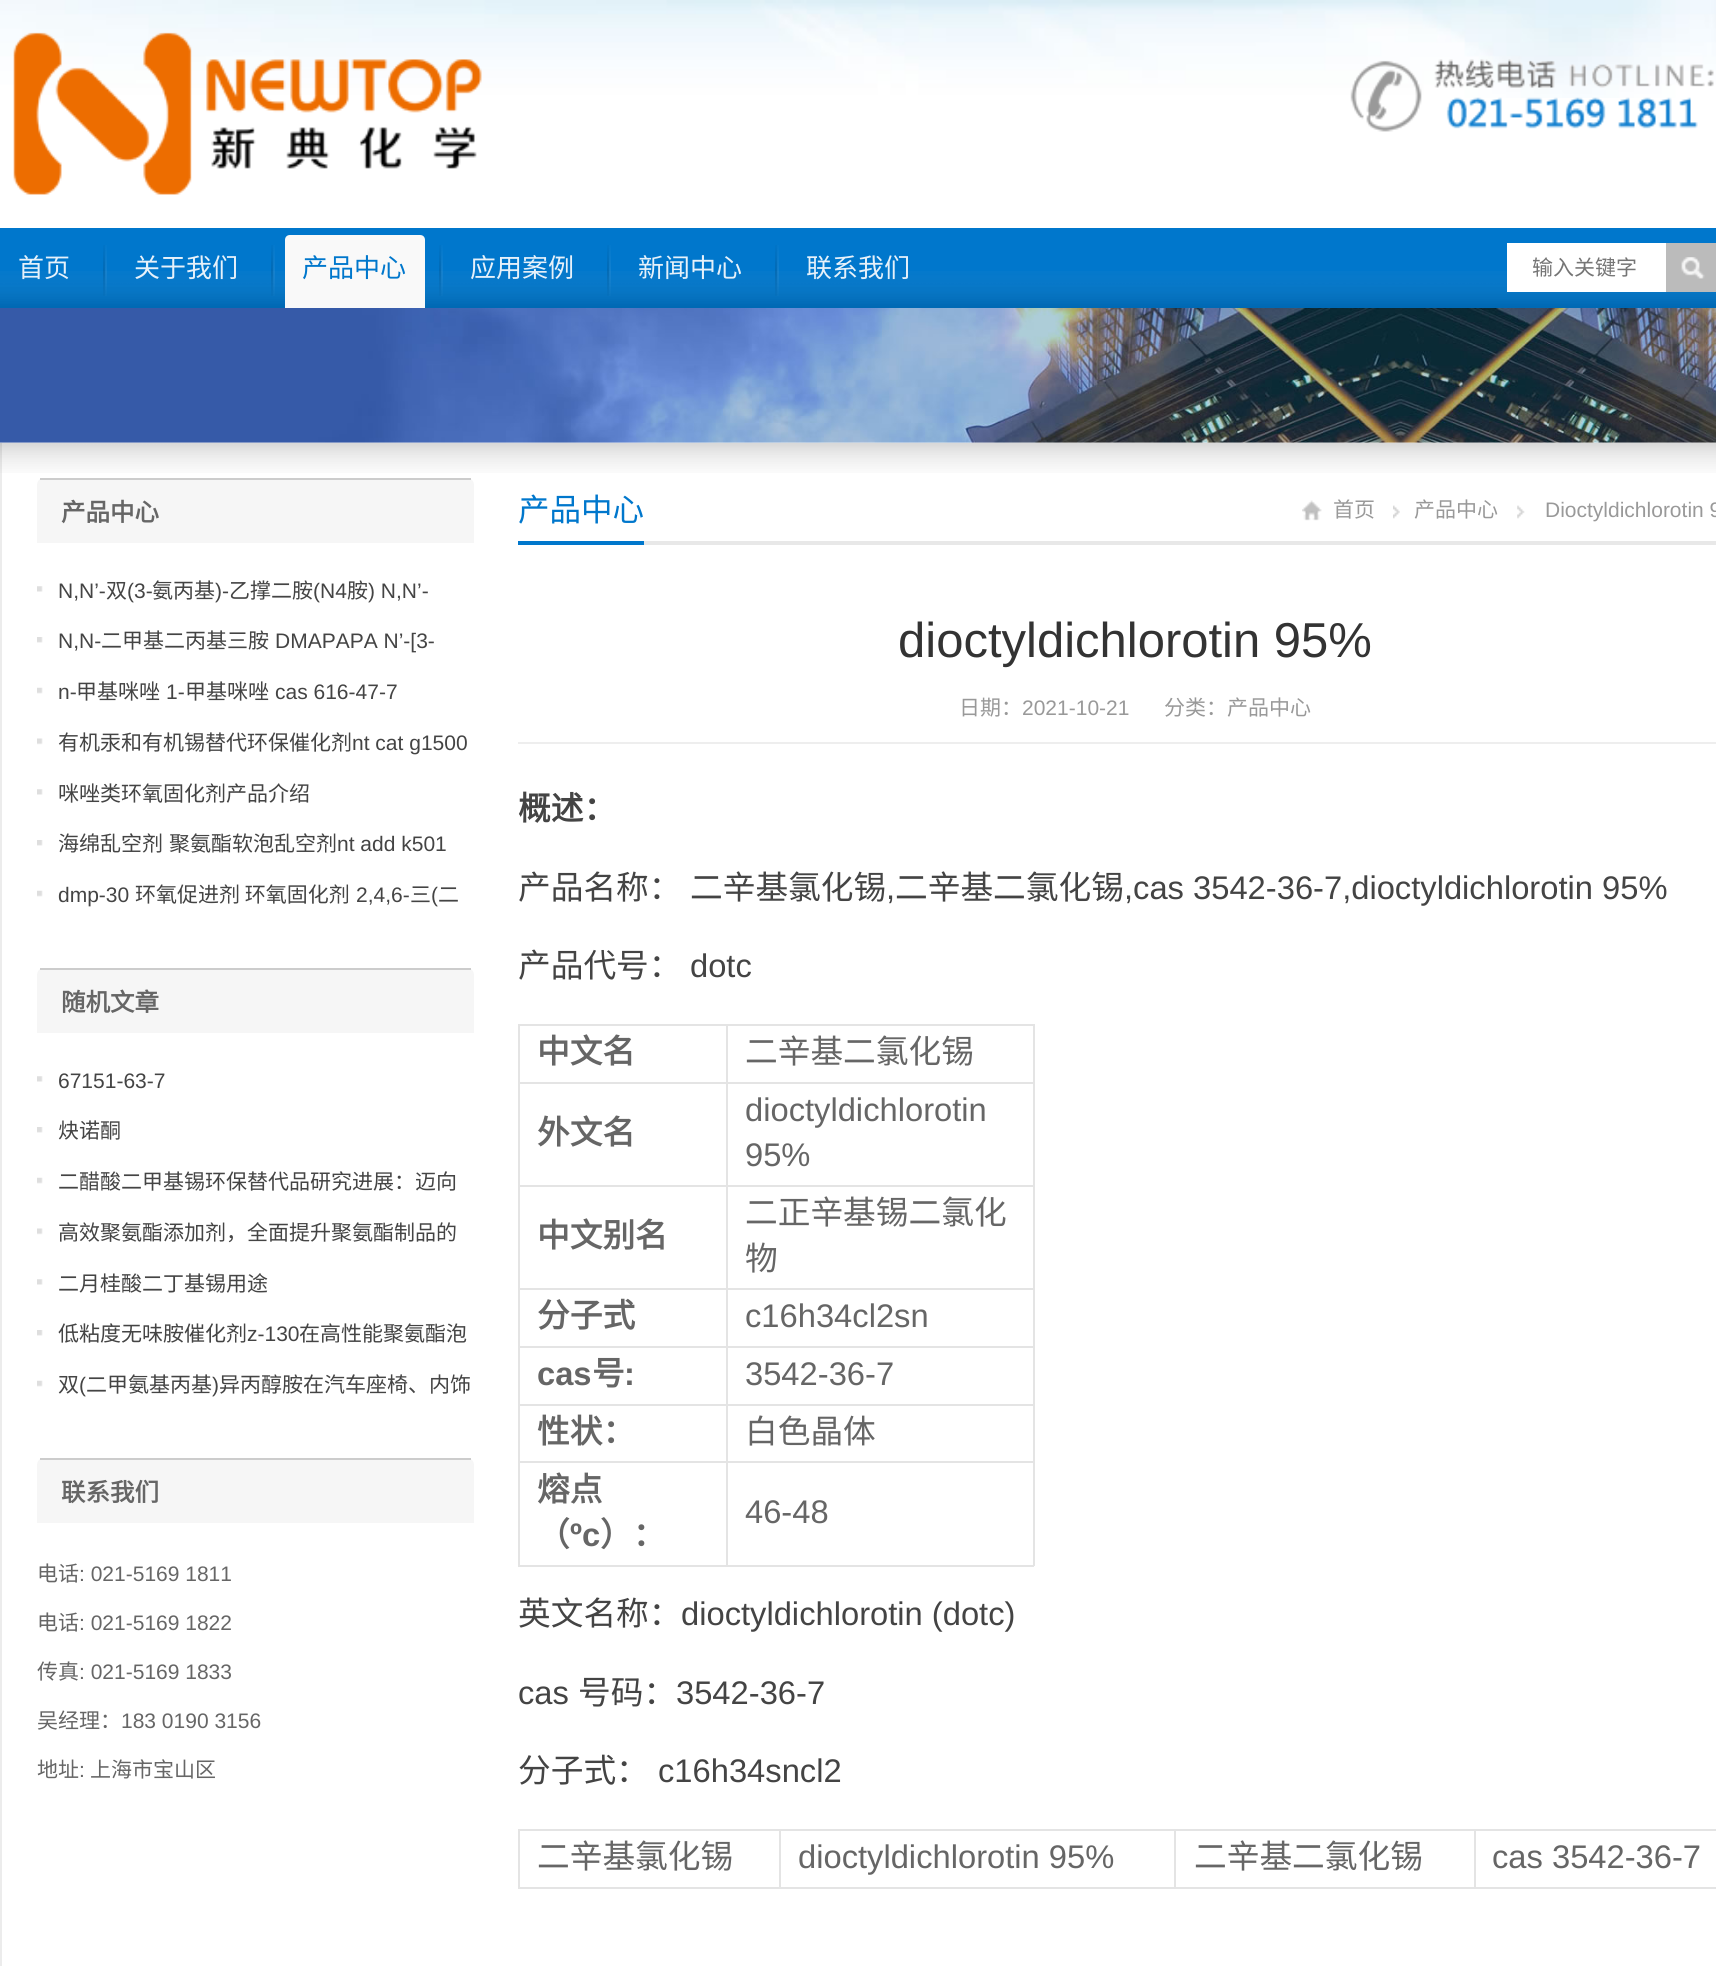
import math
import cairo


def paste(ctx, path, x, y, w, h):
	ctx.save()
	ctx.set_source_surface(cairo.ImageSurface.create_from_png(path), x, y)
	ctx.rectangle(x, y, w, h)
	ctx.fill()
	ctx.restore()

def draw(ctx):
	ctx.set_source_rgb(1, 1, 1)
	ctx.paint()
	paste(ctx, 'media/1.png', 0, 0, 1716, 98)
	paste(ctx, 'media/2.png', 13, 32, 469, 163)
	paste(ctx, 'media/3.png', 1350, 59, 364, 73)
	ctx.set_source_rgb(0, 0.467, 0.8)
	ctx.rectangle(0, 228, 1716, 80)
	ctx.fill()
	paste(ctx, 'media/4.png', 0, 271, 1716, 37)
	ctx.select_font_face('Noto Sans CJK SC')
	ctx.set_font_size(26)
	ctx.set_source_rgb(0.902, 0.945, 0.98)
	ctx.move_to(18, 277)
	ctx.show_text('首页')
	paste(ctx, 'media/5.png', 103, 245, 4, 51)
	ctx.move_to(134, 277)
	ctx.show_text('关于我们')
	paste(ctx, 'media/5.png', 271, 245, 4, 51)
	ctx.set_source_rgb(0.973, 0.973, 0.973)
	ctx.new_path()
	ctx.move_to(290, 235)
	ctx.line_to(420, 235)
	ctx.curve_to(423, 235, 425, 237, 425, 240)
	ctx.line_to(425, 308)
	ctx.line_to(285, 308)
	ctx.line_to(285, 240)
	ctx.curve_to(285, 237, 287, 235, 290, 235)
	ctx.close_path()
	ctx.fill()
	ctx.set_source_rgb(0, 0.467, 0.8)
	ctx.move_to(302, 277)
	ctx.show_text('产品中心')
	paste(ctx, 'media/6.png', 439, 245, 4, 51)
	ctx.set_source_rgb(0.902, 0.945, 0.98)
	ctx.move_to(470, 277)
	ctx.show_text('应用案例')
	paste(ctx, 'media/6.png', 607, 245, 4, 51)
	ctx.move_to(638, 277)
	ctx.show_text('新闻中心')
	paste(ctx, 'media/5.png', 775, 245, 4, 51)
	ctx.move_to(806, 277)
	ctx.show_text('联系我们')
	ctx.set_source_rgb(1, 1, 1)
	ctx.rectangle(1507, 243, 159, 49)
	ctx.fill()
	ctx.set_font_size(21)
	ctx.set_source_rgb(0.459, 0.459, 0.459)
	ctx.move_to(1532, 275)
	ctx.show_text('输入关键字')
	ctx.set_source_rgb(0.733, 0.733, 0.733)
	ctx.rectangle(1666, 243, 50, 49)
	ctx.fill()
	paste(ctx, 'media/7.png', 1681, 257, 24, 22)
	ctx.set_source_rgb(0.933, 0.933, 0.933)
	ctx.rectangle(0, 442, 1716, 1)
	ctx.fill()
	paste(ctx, 'media/8.png', 0, 308, 1716, 135)
	ctx.set_source_rgb(0.922, 0.922, 0.922)
	ctx.rectangle(0, 443, 2, 1523)
	ctx.fill()
	paste(ctx, 'media/9.png', 0, 443, 1716, 30)
	ctx.set_source_rgb(0.961, 0.961, 0.961)
	ctx.new_path()
	ctx.move_to(44, 478)
	ctx.line_to(467, 478)
	ctx.curve_to(471, 478, 474, 481, 474, 485)
	ctx.line_to(474, 543)
	ctx.line_to(37, 543)
	ctx.line_to(37, 485)
	ctx.curve_to(37, 481, 40, 478, 44, 478)
	ctx.close_path()
	ctx.fill()
	ctx.set_source_rgb(0.8, 0.8, 0.8)
	ctx.rectangle(40, 478, 431, 2)
	ctx.fill()
	ctx.select_font_face('Noto Sans CJK SC', cairo.FONT_SLANT_NORMAL, cairo.FONT_WEIGHT_BOLD)
	ctx.set_font_size(24.5)
	ctx.set_source_rgb(0.4, 0.4, 0.4)
	ctx.move_to(61, 521)
	ctx.show_text('产品中心')
	paste(ctx, 'media/10.png', 37, 586, 6, 6)
	ctx.select_font_face('Liberation Sans')
	ctx.set_font_size(21)
	ctx.set_source_rgb(0.267, 0.267, 0.267)
	ctx.move_to(58, 598)
	ctx.show_text('N,N’-')
	ctx.select_font_face('Noto Sans CJK SC')
	ctx.move_to(106, 598)
	ctx.show_text('双')
	ctx.select_font_face('Liberation Sans')
	ctx.move_to(127, 598)
	ctx.show_text('(3-')
	ctx.select_font_face('Noto Sans CJK SC')
	ctx.move_to(152, 598)
	ctx.show_text('氨丙基')
	ctx.select_font_face('Liberation Sans')
	ctx.move_to(215, 598)
	ctx.show_text(')-')
	ctx.select_font_face('Noto Sans CJK SC')
	ctx.move_to(229, 598)
	ctx.show_text('乙撑二胺')
	ctx.select_font_face('Liberation Sans')
	ctx.move_to(313, 598)
	ctx.show_text('(N4')
	ctx.select_font_face('Noto Sans CJK SC')
	ctx.move_to(347, 598)
	ctx.show_text('胺')
	ctx.select_font_face('Liberation Sans')
	ctx.move_to(368, 598)
	ctx.show_text(') N,N’-')
	paste(ctx, 'media/11.png', 37, 637, 6, 6)
	ctx.move_to(58, 648)
	ctx.show_text('N,N-')
	ctx.select_font_face('Noto Sans CJK SC')
	ctx.move_to(101, 648)
	ctx.show_text('二甲基二丙基三胺')
	ctx.select_font_face('Liberation Sans')
	ctx.move_to(275, 648)
	ctx.show_text('DMAPAPA N’-[3-')
	paste(ctx, 'media/12.png', 37, 687, 6, 7)
	ctx.move_to(58, 699)
	ctx.show_text('n-')
	ctx.select_font_face('Noto Sans CJK SC')
	ctx.move_to(76, 699)
	ctx.show_text('甲基咪唑')
	ctx.select_font_face('Liberation Sans')
	ctx.move_to(166, 699)
	ctx.show_text('1-')
	ctx.select_font_face('Noto Sans CJK SC')
	ctx.move_to(185, 699)
	ctx.show_text('甲基咪唑')
	ctx.select_font_face('Liberation Sans')
	ctx.move_to(275, 699)
	ctx.show_text('cas 616-47-7')
	paste(ctx, 'media/13.png', 37, 738, 6, 7)
	ctx.select_font_face('Noto Sans CJK SC')
	ctx.move_to(58, 750)
	ctx.show_text('有机汞和有机锡替代环保催化剂')
	ctx.select_font_face('Liberation Sans')
	ctx.move_to(352, 750)
	ctx.show_text('nt cat g1500')
	paste(ctx, 'media/10.png', 37, 789, 6, 6)
	ctx.select_font_face('Noto Sans CJK SC')
	ctx.move_to(58, 801)
	ctx.show_text('咪唑类环氧固化剂产品介绍')
	paste(ctx, 'media/11.png', 37, 840, 6, 6)
	ctx.move_to(58, 851)
	ctx.show_text('海绵乱空剂')
	ctx.move_to(169, 851)
	ctx.show_text('聚氨酯软泡乱空剂')
	ctx.select_font_face('Liberation Sans')
	ctx.move_to(337, 851)
	ctx.show_text('nt add k501')
	paste(ctx, 'media/12.png', 37, 890, 6, 7)
	ctx.move_to(58, 902)
	ctx.show_text('dmp-30')
	ctx.select_font_face('Noto Sans CJK SC')
	ctx.move_to(135, 902)
	ctx.show_text('环氧促进剂 环氧固化剂')
	ctx.select_font_face('Liberation Sans')
	ctx.move_to(356, 902)
	ctx.show_text('2,4,6-')
	ctx.select_font_face('Noto Sans CJK SC')
	ctx.move_to(410, 902)
	ctx.show_text('三')
	ctx.select_font_face('Liberation Sans')
	ctx.move_to(431, 902)
	ctx.show_text('(')
	ctx.select_font_face('Noto Sans CJK SC')
	ctx.move_to(438, 902)
	ctx.show_text('二')
	ctx.set_source_rgb(0.961, 0.961, 0.961)
	ctx.new_path()
	ctx.move_to(44, 968)
	ctx.line_to(467, 968)
	ctx.curve_to(471, 968, 474, 971, 474, 975)
	ctx.line_to(474, 1033)
	ctx.line_to(37, 1033)
	ctx.line_to(37, 975)
	ctx.curve_to(37, 971, 40, 968, 44, 968)
	ctx.close_path()
	ctx.fill()
	ctx.set_source_rgb(0.8, 0.8, 0.8)
	ctx.rectangle(40, 968, 431, 2)
	ctx.fill()
	ctx.select_font_face('Noto Sans CJK SC', cairo.FONT_SLANT_NORMAL, cairo.FONT_WEIGHT_BOLD)
	ctx.set_font_size(24.5)
	ctx.set_source_rgb(0.4, 0.4, 0.4)
	ctx.move_to(61, 1011)
	ctx.show_text('随机文章')
	paste(ctx, 'media/10.png', 37, 1076, 6, 6)
	ctx.select_font_face('Liberation Sans')
	ctx.set_font_size(21)
	ctx.set_source_rgb(0.267, 0.267, 0.267)
	ctx.move_to(58, 1088)
	ctx.show_text('67151-63-7')
	paste(ctx, 'media/11.png', 37, 1127, 6, 6)
	ctx.select_font_face('Noto Sans CJK SC')
	ctx.move_to(58, 1138)
	ctx.show_text('炔诺酮')
	paste(ctx, 'media/12.png', 37, 1177, 6, 7)
	ctx.move_to(58, 1189)
	ctx.show_text('二醋酸二甲基锡环保替代品研究进展：迈向')
	paste(ctx, 'media/13.png', 37, 1228, 6, 7)
	ctx.move_to(58, 1240)
	ctx.show_text('高效聚氨酯添加剂，全面提升聚氨酯制品的')
	paste(ctx, 'media/10.png', 37, 1279, 6, 6)
	ctx.move_to(58, 1291)
	ctx.show_text('二月桂酸二丁基锡用途')
	paste(ctx, 'media/11.png', 37, 1330, 6, 6)
	ctx.move_to(58, 1341)
	ctx.show_text('低粘度无味胺催化剂')
	ctx.select_font_face('Liberation Sans')
	ctx.move_to(247, 1341)
	ctx.show_text('z-130')
	ctx.select_font_face('Noto Sans CJK SC')
	ctx.move_to(299, 1341)
	ctx.show_text('在高性能聚氨酯泡')
	paste(ctx, 'media/12.png', 37, 1380, 6, 7)
	ctx.move_to(58, 1392)
	ctx.show_text('双')
	ctx.select_font_face('Liberation Sans')
	ctx.move_to(79, 1392)
	ctx.show_text('(')
	ctx.select_font_face('Noto Sans CJK SC')
	ctx.move_to(86, 1392)
	ctx.show_text('二甲氨基丙基')
	ctx.select_font_face('Liberation Sans')
	ctx.move_to(212, 1392)
	ctx.show_text(')')
	ctx.select_font_face('Noto Sans CJK SC')
	ctx.move_to(219, 1392)
	ctx.show_text('异丙醇胺在汽车座椅、内饰')
	ctx.set_source_rgb(0.961, 0.961, 0.961)
	ctx.new_path()
	ctx.move_to(44, 1458)
	ctx.line_to(467, 1458)
	ctx.curve_to(471, 1458, 474, 1461, 474, 1465)
	ctx.line_to(474, 1523)
	ctx.line_to(37, 1523)
	ctx.line_to(37, 1465)
	ctx.curve_to(37, 1461, 40, 1458, 44, 1458)
	ctx.close_path()
	ctx.fill()
	ctx.set_source_rgb(0.8, 0.8, 0.8)
	ctx.rectangle(40, 1458, 431, 2)
	ctx.fill()
	ctx.select_font_face('Noto Sans CJK SC', cairo.FONT_SLANT_NORMAL, cairo.FONT_WEIGHT_BOLD)
	ctx.set_font_size(24.5)
	ctx.set_source_rgb(0.4, 0.4, 0.4)
	ctx.move_to(61, 1501)
	ctx.show_text('联系我们')
	ctx.select_font_face('Noto Sans CJK SC')
	ctx.set_font_size(21)
	ctx.move_to(37, 1581)
	ctx.show_text('电话')
	ctx.select_font_face('Liberation Sans')
	ctx.move_to(79, 1581)
	ctx.show_text(': 021-5169 1811')
	ctx.select_font_face('Noto Sans CJK SC')
	ctx.move_to(37, 1630)
	ctx.show_text('电话')
	ctx.select_font_face('Liberation Sans')
	ctx.move_to(79, 1630)
	ctx.show_text(': 021-5169 1822')
	ctx.select_font_face('Noto Sans CJK SC')
	ctx.move_to(37, 1679)
	ctx.show_text('传真')
	ctx.select_font_face('Liberation Sans')
	ctx.move_to(79, 1679)
	ctx.show_text(': 021-5169 1833')
	ctx.select_font_face('Noto Sans CJK SC')
	ctx.move_to(37, 1728)
	ctx.show_text('吴经理：')
	ctx.select_font_face('Liberation Sans')
	ctx.move_to(121, 1728)
	ctx.show_text('183 0190 3156')
	ctx.select_font_face('Noto Sans CJK SC')
	ctx.move_to(37, 1777)
	ctx.show_text('地址')
	ctx.select_font_face('Liberation Sans')
	ctx.move_to(79, 1777)
	ctx.show_text(':')
	ctx.select_font_face('Noto Sans CJK SC')
	ctx.move_to(90, 1777)
	ctx.show_text('上海市宝山区')
	ctx.set_source_rgb(0.91, 0.91, 0.91)
	ctx.rectangle(644, 541, 1072, 4)
	ctx.fill()
	ctx.set_source_rgb(0, 0.467, 0.8)
	ctx.rectangle(518, 541, 126, 4)
	ctx.fill()
	ctx.set_font_size(31.5)
	ctx.move_to(518, 521)
	ctx.show_text('产品中心')
	paste(ctx, 'media/14.png', 1302, 500, 20, 21)
	ctx.set_font_size(21)
	ctx.set_source_rgb(0.6, 0.6, 0.6)
	ctx.move_to(1333, 517)
	ctx.show_text('首页')
	paste(ctx, 'media/15.png', 1393, 505, 7, 14)
	ctx.move_to(1414, 517)
	ctx.show_text('产品中心')
	paste(ctx, 'media/16.png', 1517, 505, 8, 14)
	ctx.select_font_face('Liberation Sans')
	ctx.move_to(1545, 517)
	ctx.show_text('Dioctyldichlorotin 9')
	ctx.set_font_size(49)
	ctx.set_source_rgb(0.2, 0.2, 0.2)
	ctx.move_to(898, 657)
	ctx.show_text('dioctyldichlorotin 95%')
	ctx.set_source_rgb(0.933, 0.933, 0.933)
	ctx.rectangle(518, 742, 1198, 2)
	ctx.fill()
	ctx.select_font_face('Noto Sans CJK SC')
	ctx.set_font_size(21)
	ctx.set_source_rgb(0.6, 0.6, 0.6)
	ctx.move_to(959, 715)
	ctx.show_text('日期：')
	ctx.select_font_face('Liberation Sans')
	ctx.move_to(1022, 715)
	ctx.show_text('2021-10-21')
	ctx.select_font_face('Noto Sans CJK SC')
	ctx.move_to(1164, 715)
	ctx.show_text('分类：产品中心')
	ctx.select_font_face('Noto Sans CJK SC', cairo.FONT_SLANT_NORMAL, cairo.FONT_WEIGHT_BOLD)
	ctx.set_font_size(32.7)
	ctx.set_source_rgb(0.267, 0.267, 0.267)
	ctx.move_to(518, 820)
	ctx.show_text('概述：')
	ctx.select_font_face('Noto Sans CJK SC')
	ctx.move_to(518, 899)
	ctx.show_text('产品名称：')
	ctx.move_to(690, 899)
	ctx.show_text('二辛基氯化锡')
	ctx.select_font_face('Liberation Sans')
	ctx.move_to(886, 899)
	ctx.show_text(',')
	ctx.select_font_face('Noto Sans CJK SC')
	ctx.move_to(895, 899)
	ctx.show_text('二辛基二氯化锡')
	ctx.select_font_face('Liberation Sans')
	ctx.move_to(1124, 899)
	ctx.show_text(',cas 3542-36-7,dioctyldichlorotin 95%')
	ctx.select_font_face('Noto Sans CJK SC')
	ctx.move_to(518, 977)
	ctx.show_text('产品代号：')
	ctx.select_font_face('Liberation Sans')
	ctx.move_to(690, 977)
	ctx.show_text('dotc')
	ctx.set_source_rgb(0.894, 0.894, 0.894)
	ctx.rectangle(518, 1565, 516, 2)
	ctx.rectangle(518, 1024, 2, 542)
	ctx.rectangle(518, 1024, 516, 2)
	ctx.rectangle(518, 1082, 516, 2)
	ctx.rectangle(518, 1185, 516, 2)
	ctx.rectangle(518, 1288, 516, 2)
	ctx.rectangle(518, 1346, 516, 2)
	ctx.rectangle(518, 1404, 516, 2)
	ctx.rectangle(518, 1461, 516, 2)
	ctx.rectangle(726, 1461, 2, 105)
	ctx.rectangle(726, 1404, 2, 59)
	ctx.rectangle(726, 1346, 2, 59)
	ctx.rectangle(726, 1288, 2, 60)
	ctx.rectangle(726, 1185, 2, 105)
	ctx.rectangle(726, 1082, 2, 105)
	ctx.rectangle(726, 1024, 2, 59)
	ctx.fill()
	ctx.select_font_face('Noto Sans CJK SC', cairo.FONT_SLANT_NORMAL, cairo.FONT_WEIGHT_BOLD)
	ctx.set_source_rgb(0.4, 0.4, 0.4)
	ctx.move_to(537, 1063)
	ctx.show_text('中文名')
	ctx.set_source_rgb(0.894, 0.894, 0.894)
	ctx.rectangle(1033, 1461, 2, 105)
	ctx.rectangle(1033, 1404, 2, 59)
	ctx.rectangle(1033, 1346, 2, 59)
	ctx.rectangle(1033, 1288, 2, 60)
	ctx.rectangle(1033, 1185, 2, 105)
	ctx.rectangle(1033, 1082, 2, 105)
	ctx.rectangle(1033, 1024, 2, 59)
	ctx.fill()
	ctx.select_font_face('Noto Sans CJK SC')
	ctx.set_source_rgb(0.4, 0.4, 0.4)
	ctx.move_to(745, 1063)
	ctx.show_text('二辛基二氯化锡')
	ctx.select_font_face('Noto Sans CJK SC', cairo.FONT_SLANT_NORMAL, cairo.FONT_WEIGHT_BOLD)
	ctx.move_to(537, 1144)
	ctx.show_text('外文名')
	ctx.select_font_face('Liberation Sans')
	ctx.move_to(745, 1121)
	ctx.show_text('dioctyldichlorotin')
	ctx.move_to(745, 1166)
	ctx.show_text('95%')
	ctx.select_font_face('Noto Sans CJK SC', cairo.FONT_SLANT_NORMAL, cairo.FONT_WEIGHT_BOLD)
	ctx.move_to(537, 1247)
	ctx.show_text('中文别名')
	ctx.select_font_face('Noto Sans CJK SC')
	ctx.move_to(745, 1224)
	ctx.show_text('二正辛基锡二氯化')
	ctx.move_to(745, 1270)
	ctx.show_text('物')
	ctx.select_font_face('Noto Sans CJK SC', cairo.FONT_SLANT_NORMAL, cairo.FONT_WEIGHT_BOLD)
	ctx.move_to(537, 1327)
	ctx.show_text('分子式')
	ctx.select_font_face('Liberation Sans')
	ctx.move_to(745, 1327)
	ctx.show_text('c16h34cl2sn')
	ctx.select_font_face('Liberation Sans', cairo.FONT_SLANT_NORMAL, cairo.FONT_WEIGHT_BOLD)
	ctx.move_to(537, 1385)
	ctx.show_text('cas')
	ctx.select_font_face('Noto Sans CJK SC', cairo.FONT_SLANT_NORMAL, cairo.FONT_WEIGHT_BOLD)
	ctx.move_to(592, 1385)
	ctx.show_text('号')
	ctx.select_font_face('Liberation Sans', cairo.FONT_SLANT_NORMAL, cairo.FONT_WEIGHT_BOLD)
	ctx.move_to(624, 1385)
	ctx.show_text(':')
	ctx.select_font_face('Liberation Sans')
	ctx.move_to(745, 1385)
	ctx.show_text('3542-36-7')
	ctx.select_font_face('Noto Sans CJK SC', cairo.FONT_SLANT_NORMAL, cairo.FONT_WEIGHT_BOLD)
	ctx.move_to(537, 1443)
	ctx.show_text('性状：')
	ctx.select_font_face('Noto Sans CJK SC')
	ctx.move_to(745, 1443)
	ctx.show_text('白色晶体')
	ctx.select_font_face('Noto Sans CJK SC', cairo.FONT_SLANT_NORMAL, cairo.FONT_WEIGHT_BOLD)
	ctx.move_to(537, 1501)
	ctx.show_text('熔点')
	ctx.move_to(537, 1546)
	ctx.show_text('（')
	ctx.select_font_face('Liberation Sans', cairo.FONT_SLANT_NORMAL, cairo.FONT_WEIGHT_BOLD)
	ctx.move_to(570, 1546)
	ctx.show_text('ºc')
	ctx.select_font_face('Noto Sans CJK SC', cairo.FONT_SLANT_NORMAL, cairo.FONT_WEIGHT_BOLD)
	ctx.move_to(600, 1546)
	ctx.show_text('）：')
	ctx.select_font_face('Liberation Sans')
	ctx.move_to(745, 1523)
	ctx.show_text('46-48')
	ctx.select_font_face('Noto Sans CJK SC')
	ctx.set_source_rgb(0.267, 0.267, 0.267)
	ctx.move_to(518, 1625)
	ctx.show_text('英文名称：')
	ctx.select_font_face('Liberation Sans')
	ctx.move_to(681, 1625)
	ctx.show_text('dioctyldichlorotin (dotc)')
	ctx.move_to(518, 1704)
	ctx.show_text('cas')
	ctx.select_font_face('Noto Sans CJK SC')
	ctx.move_to(578, 1704)
	ctx.show_text('号码：')
	ctx.select_font_face('Liberation Sans')
	ctx.move_to(676, 1704)
	ctx.show_text('3542-36-7')
	ctx.select_font_face('Noto Sans CJK SC')
	ctx.move_to(518, 1782)
	ctx.show_text('分子式：')
	ctx.select_font_face('Liberation Sans')
	ctx.move_to(658, 1782)
	ctx.show_text('c16h34sncl2')
	ctx.set_source_rgb(0.894, 0.894, 0.894)
	ctx.rectangle(518, 1887, 1198, 2)
	ctx.rectangle(518, 1829, 2, 59)
	ctx.rectangle(518, 1829, 1198, 2)
	ctx.rectangle(779, 1829, 2, 59)
	ctx.fill()
	ctx.select_font_face('Noto Sans CJK SC')
	ctx.set_source_rgb(0.4, 0.4, 0.4)
	ctx.move_to(537, 1868)
	ctx.show_text('二辛基氯化锡')
	ctx.set_source_rgb(0.894, 0.894, 0.894)
	ctx.rectangle(1174, 1829, 2, 59)
	ctx.fill()
	ctx.select_font_face('Liberation Sans')
	ctx.set_source_rgb(0.4, 0.4, 0.4)
	ctx.move_to(798, 1868)
	ctx.show_text('dioctyldichlorotin 95%')
	ctx.set_source_rgb(0.894, 0.894, 0.894)
	ctx.rectangle(1474, 1829, 2, 59)
	ctx.fill()
	ctx.select_font_face('Noto Sans CJK SC')
	ctx.set_source_rgb(0.4, 0.4, 0.4)
	ctx.move_to(1194, 1868)
	ctx.show_text('二辛基二氯化锡')
	ctx.select_font_face('Liberation Sans')
	ctx.move_to(1492, 1868)
	ctx.show_text('cas 3542-36-7')


surface = cairo.ImageSurface(cairo.FORMAT_RGB24, 1716, 1966)
ctx = cairo.Context(surface)
options = cairo.FontOptions()
options.set_hint_metrics(cairo.HINT_METRICS_OFF)
options.set_hint_style(cairo.HINT_STYLE_NONE)
ctx.set_font_options(options)
ctx.set_miter_limit(4)
draw(ctx)
surface.write_to_png('image.png')
